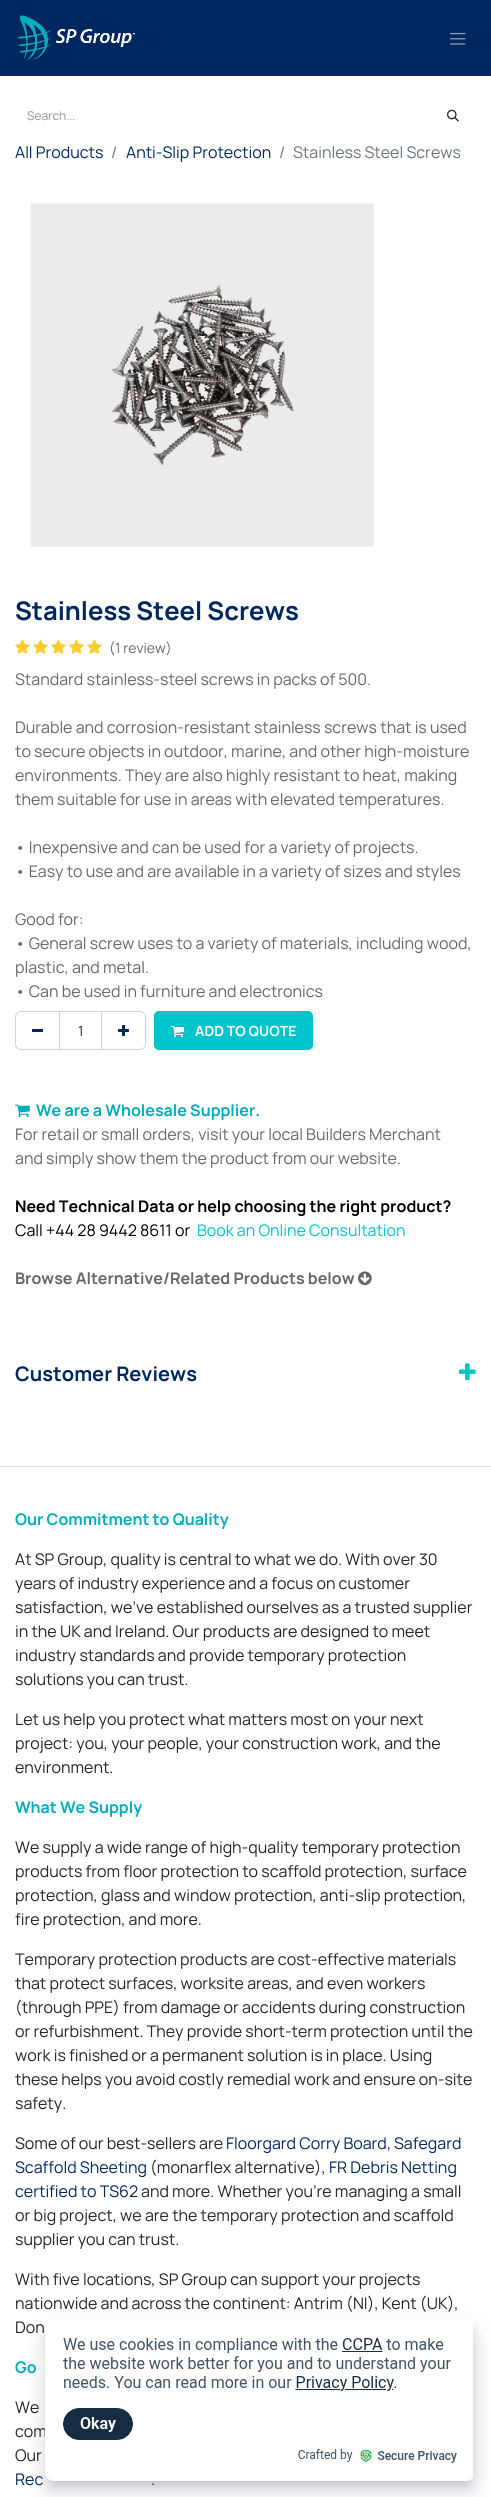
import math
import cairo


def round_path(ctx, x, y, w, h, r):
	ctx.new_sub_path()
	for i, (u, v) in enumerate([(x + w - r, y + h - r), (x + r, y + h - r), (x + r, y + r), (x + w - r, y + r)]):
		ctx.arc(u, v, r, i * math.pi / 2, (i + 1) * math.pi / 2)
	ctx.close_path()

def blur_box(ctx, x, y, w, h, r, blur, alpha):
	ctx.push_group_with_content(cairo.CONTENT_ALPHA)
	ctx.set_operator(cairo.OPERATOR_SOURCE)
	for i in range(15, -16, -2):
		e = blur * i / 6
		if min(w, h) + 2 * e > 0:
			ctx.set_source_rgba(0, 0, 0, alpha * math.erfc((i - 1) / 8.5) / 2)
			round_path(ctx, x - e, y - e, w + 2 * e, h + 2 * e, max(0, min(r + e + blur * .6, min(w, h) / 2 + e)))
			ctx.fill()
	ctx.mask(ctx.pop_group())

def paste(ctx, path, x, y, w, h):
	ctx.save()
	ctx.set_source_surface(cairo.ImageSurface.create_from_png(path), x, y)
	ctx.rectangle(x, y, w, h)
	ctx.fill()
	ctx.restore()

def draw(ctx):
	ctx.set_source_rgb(1, 1, 1)
	ctx.paint()
	ctx.set_source_rgb(0, 0.153, 0.376)
	ctx.rectangle(0, 0, 491, 76)
	ctx.fill()
	paste(ctx, 'media/1.png', 18, 15, 117, 45)
	paste(ctx, 'media/2.png', 450, 32, 16, 13)
	ctx.select_font_face('Manrope')
	ctx.set_font_size(12)
	ctx.set_source_rgb(0.565, 0.573, 0.58)
	ctx.move_to(27, 120)
	ctx.show_text('Search...')
	paste(ctx, 'media/3.png', 447, 109, 12, 13)
	ctx.set_font_size(16)
	ctx.set_source_rgb(0, 0.153, 0.376)
	ctx.move_to(15, 158)
	ctx.show_text('All Products')
	ctx.set_source_rgb(0.424, 0.459, 0.49)
	ctx.move_to(111, 158)
	ctx.show_text('/')
	ctx.set_source_rgb(0, 0.153, 0.376)
	ctx.move_to(126, 158)
	ctx.show_text('Anti-Slip Protection')
	ctx.set_source_rgb(0.424, 0.459, 0.49)
	ctx.move_to(279, 158)
	ctx.show_text('/')
	ctx.move_to(293, 158)
	ctx.show_text('Stainless Steel Screws')
	paste(ctx, 'media/4.png', 30, 203, 344, 344)
	ctx.select_font_face('Manrope', cairo.FONT_SLANT_NORMAL, cairo.FONT_WEIGHT_BOLD)
	ctx.set_font_size(25.6)
	ctx.set_source_rgb(0, 0.153, 0.376)
	ctx.move_to(15, 620)
	ctx.show_text('Stainless Steel Screws')
	paste(ctx, 'media/5.png', 15, 639, 15, 15)
	paste(ctx, 'media/5.png', 33, 639, 15, 15)
	paste(ctx, 'media/5.png', 51, 639, 15, 15)
	paste(ctx, 'media/5.png', 69, 639, 15, 15)
	paste(ctx, 'media/5.png', 87, 639, 15, 15)
	ctx.select_font_face('Manrope')
	ctx.set_font_size(14)
	ctx.set_source_rgb(0.392, 0.4, 0.412)
	ctx.move_to(109, 653)
	ctx.show_text('(1 review)')
	ctx.set_font_size(16)
	for x, y, s in [
		(15, 685, 'Standard stainless-steel screws in packs of 500.'),
		(15, 733, 'Durable and corrosion-resistant stainless screws that is used'),
		(15, 757, 'to secure objects in outdoor, marine, and other high-moisture'),
		(15, 781, 'environments. They are also highly resistant to heat, making'),
		(15, 805, 'them suitable for use in areas with elevated temperatures.'),
		(15, 853, '• Inexpensive and can be used for a variety of projects.'),
		(15, 877, '• Easy to use and are available in a variety of sizes and styles'),
		(15, 925, 'Good for:'),
		(15, 949, '• General screw uses to a variety of materials, including wood,'),
		(15, 973, 'plastic, and metal.'),
		(15, 997, '• Can be used in furniture and electronics'),
	]:
		ctx.move_to(x, y)
		ctx.show_text(s)
	ctx.rectangle(59.5, 1011.5, 42, 38)
	ctx.set_source_rgb(0.808, 0.831, 0.855)
	ctx.set_line_width(1)
	ctx.stroke()
	ctx.new_path()
	ctx.move_to(21, 1011.5)
	ctx.line_to(59.5, 1011.5)
	ctx.line_to(59.5, 1049.5)
	ctx.line_to(21, 1049.5)
	ctx.curve_to(18, 1049.5, 15.5, 1047, 15.5, 1044)
	ctx.line_to(15.5, 1017)
	ctx.curve_to(15.5, 1014, 18, 1011.5, 21, 1011.5)
	ctx.close_path()
	ctx.stroke()
	ctx.set_source_rgb(0, 0.153, 0.376)
	ctx.rectangle(32, 1029, 11, 3)
	ctx.fill()
	ctx.set_font_size(14)
	ctx.set_source_rgb(0.129, 0.145, 0.161)
	ctx.move_to(78, 1036)
	ctx.show_text('1')
	ctx.new_path()
	ctx.move_to(101.5, 1011.5)
	ctx.line_to(140, 1011.5)
	ctx.curve_to(143, 1011.5, 145.5, 1014, 145.5, 1017)
	ctx.line_to(145.5, 1044)
	ctx.curve_to(145.5, 1047, 143, 1049.5, 140, 1049.5)
	ctx.line_to(101.5, 1049.5)
	ctx.close_path()
	ctx.set_source_rgb(0.808, 0.831, 0.855)
	ctx.stroke()
	paste(ctx, 'media/6.png', 118, 1025, 11, 11)
	ctx.set_source_rgb(0, 0.769, 0.8)
	round_path(ctx, 154.5, 1011.5, 158, 38, 4.5)
	ctx.fill_preserve()
	ctx.stroke()
	paste(ctx, 'media/7.png', 171, 1026, 13, 11)
	ctx.select_font_face('Manrope', cairo.FONT_SLANT_NORMAL, cairo.FONT_WEIGHT_BOLD)
	ctx.set_source_rgb(0.973, 0.976, 0.98)
	ctx.move_to(195, 1036)
	ctx.show_text('ADD TO QUOTE')
	paste(ctx, 'media/8.png', 15, 1104, 15, 14)
	ctx.set_font_size(16)
	ctx.set_source_rgb(0.004, 0.678, 0.733)
	ctx.move_to(36, 1116)
	ctx.show_text('We are a Wholesale Supplier.')
	ctx.select_font_face('Manrope')
	ctx.set_source_rgb(0.392, 0.4, 0.412)
	ctx.move_to(15, 1140)
	ctx.show_text('For retail or small orders, visit your local Builders Merchant')
	ctx.move_to(15, 1164)
	ctx.show_text('and simply show them the product from our website.')
	ctx.select_font_face('Manrope', cairo.FONT_SLANT_NORMAL, cairo.FONT_WEIGHT_BOLD)
	ctx.set_source_rgb(0, 0, 0)
	ctx.move_to(15, 1212)
	ctx.show_text('Need Technical Data or help choosing the right product?')
	ctx.select_font_face('Manrope')
	ctx.move_to(15, 1236)
	ctx.show_text('Call +44 28 9442 8611 or')
	ctx.set_source_rgb(0, 0.769, 0.8)
	ctx.move_to(197, 1236)
	ctx.show_text('Book an Online Consultation')
	ctx.select_font_face('Manrope', cairo.FONT_SLANT_NORMAL, cairo.FONT_WEIGHT_BOLD)
	ctx.set_source_rgb(0.392, 0.4, 0.412)
	ctx.move_to(15, 1284)
	ctx.show_text('Browse Alternative/Related Products below')
	paste(ctx, 'media/9.png', 358, 1271, 14, 15)
	ctx.set_font_size(20)
	ctx.set_source_rgb(0, 0.153, 0.376)
	ctx.move_to(15, 1381)
	ctx.show_text('Customer Reviews')
	paste(ctx, 'media/10.png', 459, 1363, 17, 17)
	ctx.set_source_rgb(0.871, 0.871, 0.875)
	ctx.rectangle(0, 1466, 491, 1)
	ctx.fill()
	ctx.set_font_size(16)
	ctx.set_source_rgb(0.004, 0.678, 0.733)
	ctx.move_to(15, 1525)
	ctx.show_text('Our Commitment to Quality')
	ctx.select_font_face('Manrope')
	ctx.set_source_rgb(0.129, 0.145, 0.161)
	for x, y, s in [
		(15, 1565, 'At SP Group, quality is central to what we do. With over 30'),
		(15, 1589, 'years of industry experience and a focus on customer'),
		(15, 1613, 'satisfaction, we’ve established ourselves as a trusted supplier'),
		(15, 1637, 'in the UK and Ireland. Our products are designed to meet'),
		(15, 1661, 'industry standards and provide temporary protection'),
		(15, 1685, 'solutions you can trust.'),
		(15, 1725, 'Let us help you protect what matters most on your next'),
		(15, 1749, 'project: you, your people, your construction work, and the'),
		(15, 1773, 'environment.'),
	]:
		ctx.move_to(x, y)
		ctx.show_text(s)
	ctx.select_font_face('Manrope', cairo.FONT_SLANT_NORMAL, cairo.FONT_WEIGHT_BOLD)
	ctx.set_source_rgb(0.004, 0.678, 0.733)
	ctx.move_to(15, 1813)
	ctx.show_text('What We Supply')
	ctx.select_font_face('Manrope')
	ctx.set_source_rgb(0.129, 0.145, 0.161)
	for x, y, s in [
		(15, 1853, 'We supply a wide range of high-quality temporary protection'),
		(15, 1877, 'products from floor protection to scaffold protection, surface'),
		(15, 1901, 'protection, glass and window protection, anti-slip protection,'),
		(15, 1925, 'fire protection, and more.'),
		(15, 1965, 'Temporary protection products are cost-effective materials'),
		(15, 1989, 'that protect surfaces, worksite areas, and even workers'),
		(15, 2013, '(through PPE) from damage or accidents during construction'),
		(15, 2037, 'or refurbishment. They provide short-term protection until the'),
		(15, 2061, 'work is finished or a permanent solution is in place. Using'),
		(15, 2085, 'these helps you avoid costly remedial work and ensure on-site'),
		(15, 2109, 'safety.'),
		(15, 2149, 'Some of our best-sellers are'),
	]:
		ctx.move_to(x, y)
		ctx.show_text(s)
	ctx.set_source_rgb(0, 0.153, 0.376)
	ctx.move_to(226, 2149)
	ctx.show_text('Floorgard Corry Board')
	ctx.set_source_rgb(0.129, 0.145, 0.161)
	ctx.move_to(387, 2149)
	ctx.show_text(',')
	ctx.set_source_rgb(0, 0.153, 0.376)
	ctx.move_to(394, 2149)
	ctx.show_text('Safegard')
	ctx.move_to(15, 2173)
	ctx.show_text('Scaffold Sheeting')
	ctx.set_source_rgb(0.129, 0.145, 0.161)
	ctx.move_to(150, 2173)
	ctx.show_text('(monarflex alternative),')
	ctx.set_source_rgb(0, 0.153, 0.376)
	ctx.move_to(329, 2173)
	ctx.show_text('FR Debris Netting')
	ctx.move_to(15, 2197)
	ctx.show_text('certified to TS62')
	ctx.set_source_rgb(0.129, 0.145, 0.161)
	for x, y, s in [
		(141, 2197, 'and more. Whether you’re managing a small'),
		(15, 2221, 'or big project, we are the temporary protection and scaffold'),
		(15, 2245, 'supplier you can trust.'),
		(15, 2285, 'With five locations, SP Group can support your projects'),
		(15, 2309, 'nationwide and across the continent: Antrim (NI), Kent (UK),'),
		(15, 2333, 'Don'),
	]:
		ctx.move_to(x, y)
		ctx.show_text(s)
	ctx.select_font_face('Manrope', cairo.FONT_SLANT_NORMAL, cairo.FONT_WEIGHT_BOLD)
	ctx.set_source_rgb(0.004, 0.678, 0.733)
	ctx.move_to(15, 2373)
	ctx.show_text('Go')
	ctx.select_font_face('Manrope')
	ctx.set_source_rgb(0.129, 0.145, 0.161)
	for x, y, s in [
		(15, 2413, 'We'),
		(15, 2437, 'com'),
		(15, 2461, 'Our'),
	]:
		ctx.move_to(x, y)
		ctx.show_text(s)
	ctx.set_source_rgb(0, 0.153, 0.376)
	ctx.move_to(15, 2485)
	ctx.show_text('Rec')
	ctx.set_source_rgb(0.129, 0.145, 0.161)
	ctx.move_to(151, 2485)
	ctx.show_text('.')
	ctx.set_source_rgb(0, 0, 0)
	blur_box(ctx, 53, 2333, 414, 148, 0, 8, 0.25)
	ctx.set_source_rgb(0.196, 0.196, 0.353)
	blur_box(ctx, 49, 2333, 422, 156, 4, 13, 0.2)
	paste(ctx, 'media/11.png', 45, 2319, 428, 162)


surface = cairo.ImageSurface(cairo.FORMAT_RGB24, 491, 2497)
ctx = cairo.Context(surface)
options = cairo.FontOptions()
options.set_hint_metrics(cairo.HINT_METRICS_OFF)
options.set_hint_style(cairo.HINT_STYLE_NONE)
ctx.set_font_options(options)
ctx.set_miter_limit(4)
draw(ctx)
surface.write_to_png('image.png')
